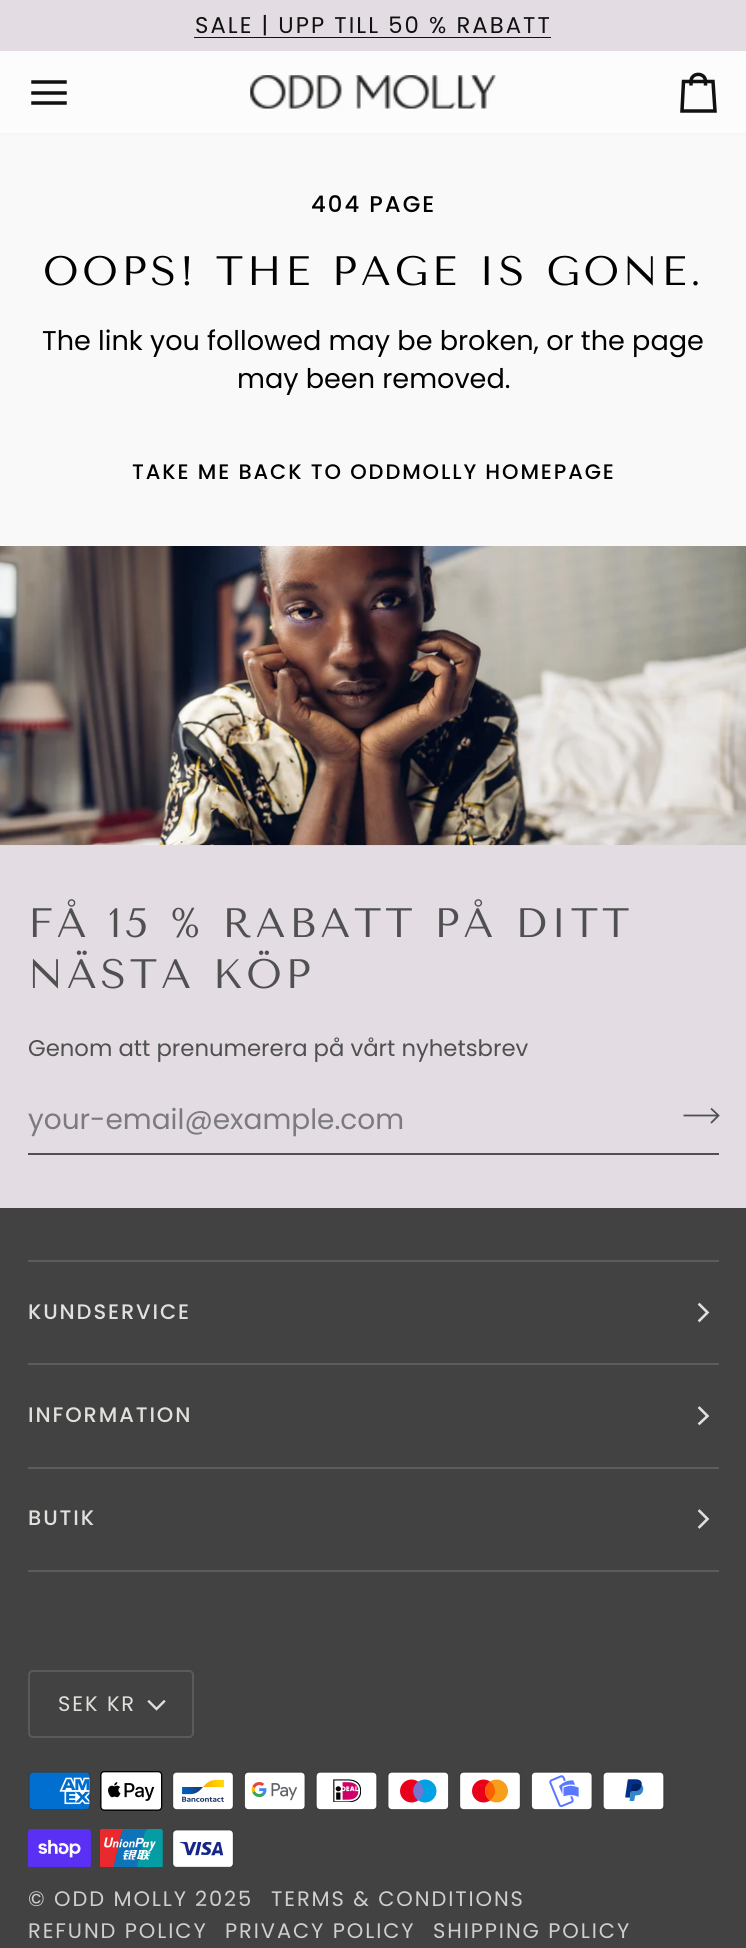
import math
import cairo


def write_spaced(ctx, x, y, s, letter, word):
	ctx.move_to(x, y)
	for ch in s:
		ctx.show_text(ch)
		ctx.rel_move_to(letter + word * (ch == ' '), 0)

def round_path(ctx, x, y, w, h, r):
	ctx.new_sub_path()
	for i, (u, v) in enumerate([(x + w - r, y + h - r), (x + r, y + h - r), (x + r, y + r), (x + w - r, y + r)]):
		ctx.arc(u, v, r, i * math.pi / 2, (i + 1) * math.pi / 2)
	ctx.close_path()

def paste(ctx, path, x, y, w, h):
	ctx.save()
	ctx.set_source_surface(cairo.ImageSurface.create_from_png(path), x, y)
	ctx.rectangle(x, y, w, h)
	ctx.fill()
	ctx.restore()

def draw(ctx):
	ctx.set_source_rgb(0.973, 0.973, 0.973)
	ctx.paint()
	ctx.set_source_rgb(0.89, 0.867, 0.89)
	ctx.rectangle(0, 0, 746, 51)
	ctx.fill()
	ctx.select_font_face('Poppins')
	ctx.set_font_size(22.75)
	ctx.set_source_rgb(0.067, 0.067, 0.067)
	write_spaced(ctx, 195, 33, 'SALE | UPP TILL 50 % RABATT', 2.05, 0)
	ctx.new_path()
	ctx.move_to(194, 37)
	ctx.line_to(194, 39)
	ctx.line_to(194, 38)
	ctx.line_to(551, 38)
	ctx.line_to(551, 37)
	ctx.close_path()
	ctx.fill()
	ctx.set_source_rgb(0.988, 0.988, 0.988)
	ctx.rectangle(0, 51, 746, 82)
	ctx.fill()
	ctx.set_source_rgb(0.969, 0.961, 0.957)
	ctx.rectangle(0, 133, 746, 2)
	ctx.fill()
	ctx.new_path()
	ctx.move_to(65, 82)
	ctx.line_to(33, 82)
	ctx.move_to(65, 93)
	ctx.line_to(33, 93)
	ctx.move_to(65, 103)
	ctx.line_to(33, 103)
	ctx.set_source_rgb(0.067, 0.067, 0.067)
	ctx.set_line_width(3.5)
	ctx.set_line_cap(cairo.LINE_CAP_SQUARE)
	ctx.stroke()
	paste(ctx, 'media/1.png', 250, 75, 246, 34)
	ctx.new_path()
	ctx.move_to(705.5, 85.5)
	ctx.line_to(705.5, 81.5)
	ctx.line_to(713, 81.5)
	ctx.line_to(715, 111)
	ctx.line_to(682, 111)
	ctx.line_to(683.5, 81.5)
	ctx.line_to(691, 81.5)
	ctx.curve_to(691, 72, 705.5, 72, 705.5, 81.5)
	ctx.line_to(691, 81.5)
	ctx.line_to(691, 85.5)
	ctx.set_line_cap(cairo.LINE_CAP_BUTT)
	ctx.stroke()
	ctx.select_font_face('Poppins Medium')
	ctx.set_source_rgb(0, 0, 0)
	write_spaced(ctx, 311, 212, '404 PAGE', 2.05, 0)
	ctx.select_font_face('Tenor Sans')
	ctx.set_font_size(41.1)
	write_spaced(ctx, 43, 285, 'OOPS! THE PAGE IS GONE.', 3.7, 0)
	ctx.select_font_face('Poppins')
	ctx.set_font_size(27.1)
	ctx.move_to(42, 350)
	ctx.show_text('The link you followed may be broken, or the page')
	ctx.move_to(237, 388)
	ctx.show_text('may been removed.')
	ctx.select_font_face('Poppins Medium')
	ctx.set_font_size(21)
	write_spaced(ctx, 132, 479, 'TAKE ME BACK TO ODDMOLLY HOMEPAGE', 1.9, 0)
	ctx.set_source_rgb(0.89, 0.867, 0.89)
	ctx.rectangle(0, 845, 746, 363)
	ctx.fill()
	paste(ctx, 'media/2.png', 0, 546, 746, 300)
	ctx.select_font_face('Tenor Sans')
	ctx.set_font_size(41.1)
	ctx.set_source_rgb(0.314, 0.314, 0.314)
	write_spaced(ctx, 28, 937, 'FÅ 15 % RABATT PÅ DITT', 3.7, 0)
	write_spaced(ctx, 28, 988, 'NÄSTA KÖP', 3.7, 0)
	ctx.select_font_face('Poppins')
	ctx.set_font_size(22.75)
	ctx.move_to(28, 1056)
	ctx.show_text('Genom att prenumerera på vårt nyhetsbrev')
	ctx.rectangle(28, 1153, 691, 2)
	ctx.fill()
	ctx.set_font_size(28)
	ctx.set_source_rgb(0.486, 0.478, 0.486)
	ctx.move_to(28, 1129)
	ctx.show_text('your-email@example.com')
	ctx.new_path()
	ctx.move_to(711, 1108.5)
	ctx.line_to(718.5, 1115.5)
	ctx.line_to(711, 1123)
	ctx.move_to(683.5, 1115.5)
	ctx.line_to(718.5, 1115.5)
	ctx.set_source_rgb(0.314, 0.314, 0.314)
	ctx.set_line_width(1.8)
	ctx.stroke()
	ctx.set_source_rgb(0.259, 0.259, 0.259)
	ctx.rectangle(0, 1208, 746, 740)
	ctx.fill()
	ctx.set_source_rgb(0.365, 0.361, 0.361)
	ctx.rectangle(28, 1260, 691, 2)
	ctx.rectangle(28, 1363, 691, 2)
	ctx.fill()
	ctx.select_font_face('Poppins Medium')
	ctx.set_font_size(21)
	ctx.set_source_rgb(0.882, 0.878, 0.867)
	write_spaced(ctx, 28, 1319, 'KUNDSERVICE', 1.9, 0)
	ctx.new_path()
	ctx.move_to(699.5, 1320.5)
	ctx.line_to(707.5, 1312.5)
	ctx.line_to(699.5, 1304.5)
	ctx.set_line_width(2.6)
	ctx.set_line_cap(cairo.LINE_CAP_SQUARE)
	ctx.stroke()
	ctx.set_source_rgb(0.365, 0.361, 0.361)
	ctx.rectangle(28, 1467, 691, 2)
	ctx.fill()
	ctx.set_source_rgb(0.882, 0.878, 0.867)
	write_spaced(ctx, 28, 1422, 'INFORMATION', 1.9, 0)
	ctx.new_path()
	ctx.move_to(699.5, 1423.5)
	ctx.line_to(707.5, 1416)
	ctx.line_to(699.5, 1408)
	ctx.stroke()
	ctx.set_source_rgb(0.365, 0.361, 0.361)
	ctx.rectangle(28, 1570, 691, 2)
	ctx.fill()
	ctx.set_source_rgb(0.882, 0.878, 0.867)
	write_spaced(ctx, 28, 1525, 'BUTIK', 1.9, 0)
	ctx.new_path()
	ctx.move_to(699.5, 1527)
	ctx.line_to(707.5, 1519)
	ctx.line_to(699.5, 1511)
	ctx.stroke()
	round_path(ctx, 29, 1671, 164, 66, 4)
	ctx.set_source_rgb(0.353, 0.353, 0.353)
	ctx.set_line_width(2)
	ctx.set_line_cap(cairo.LINE_CAP_BUTT)
	ctx.stroke()
	ctx.select_font_face('Poppins')
	ctx.set_source_rgb(0.882, 0.878, 0.867)
	write_spaced(ctx, 58, 1711, 'SEK KR', 1.9, 0)
	ctx.new_path()
	ctx.move_to(149, 1701.5)
	ctx.line_to(156.5, 1709)
	ctx.line_to(164, 1701.5)
	ctx.set_source_rgb(0.875, 0.875, 0.875)
	ctx.set_line_width(2.4)
	ctx.set_line_cap(cairo.LINE_CAP_SQUARE)
	ctx.stroke()
	paste(ctx, 'media/3.png', 28, 1771, 63, 39)
	paste(ctx, 'media/4.png', 100, 1771, 63, 40)
	paste(ctx, 'media/5.png', 172, 1771, 62, 39)
	paste(ctx, 'media/6.png', 244, 1771, 62, 39)
	paste(ctx, 'media/7.png', 315, 1771, 63, 39)
	paste(ctx, 'media/8.png', 387, 1771, 62, 39)
	paste(ctx, 'media/9.png', 459, 1771, 62, 39)
	paste(ctx, 'media/10.png', 531, 1771, 62, 39)
	paste(ctx, 'media/11.png', 602, 1771, 63, 39)
	paste(ctx, 'media/12.png', 28, 1829, 63, 38)
	paste(ctx, 'media/13.png', 100, 1829, 63, 38)
	paste(ctx, 'media/14.png', 172, 1829, 62, 38)
	ctx.set_source_rgb(0.812, 0.812, 0.812)
	for x, y, s in [
		(28, 1906, '© ODD MOLLY'),
		(195, 1906, '2025'),
		(271, 1906, 'TERMS & CONDITIONS'),
		(28, 1938, 'REFUND POLICY'),
		(225, 1938, 'PRIVACY POLICY'),
		(433, 1938, 'SHIPPING POLICY'),
	]:
		write_spaced(ctx, x, y, s, 1.9, 0)


surface = cairo.ImageSurface(cairo.FORMAT_RGB24, 746, 1948)
ctx = cairo.Context(surface)
options = cairo.FontOptions()
options.set_hint_metrics(cairo.HINT_METRICS_OFF)
options.set_hint_style(cairo.HINT_STYLE_NONE)
ctx.set_font_options(options)
ctx.set_miter_limit(4)
draw(ctx)
surface.write_to_png('image.png')
